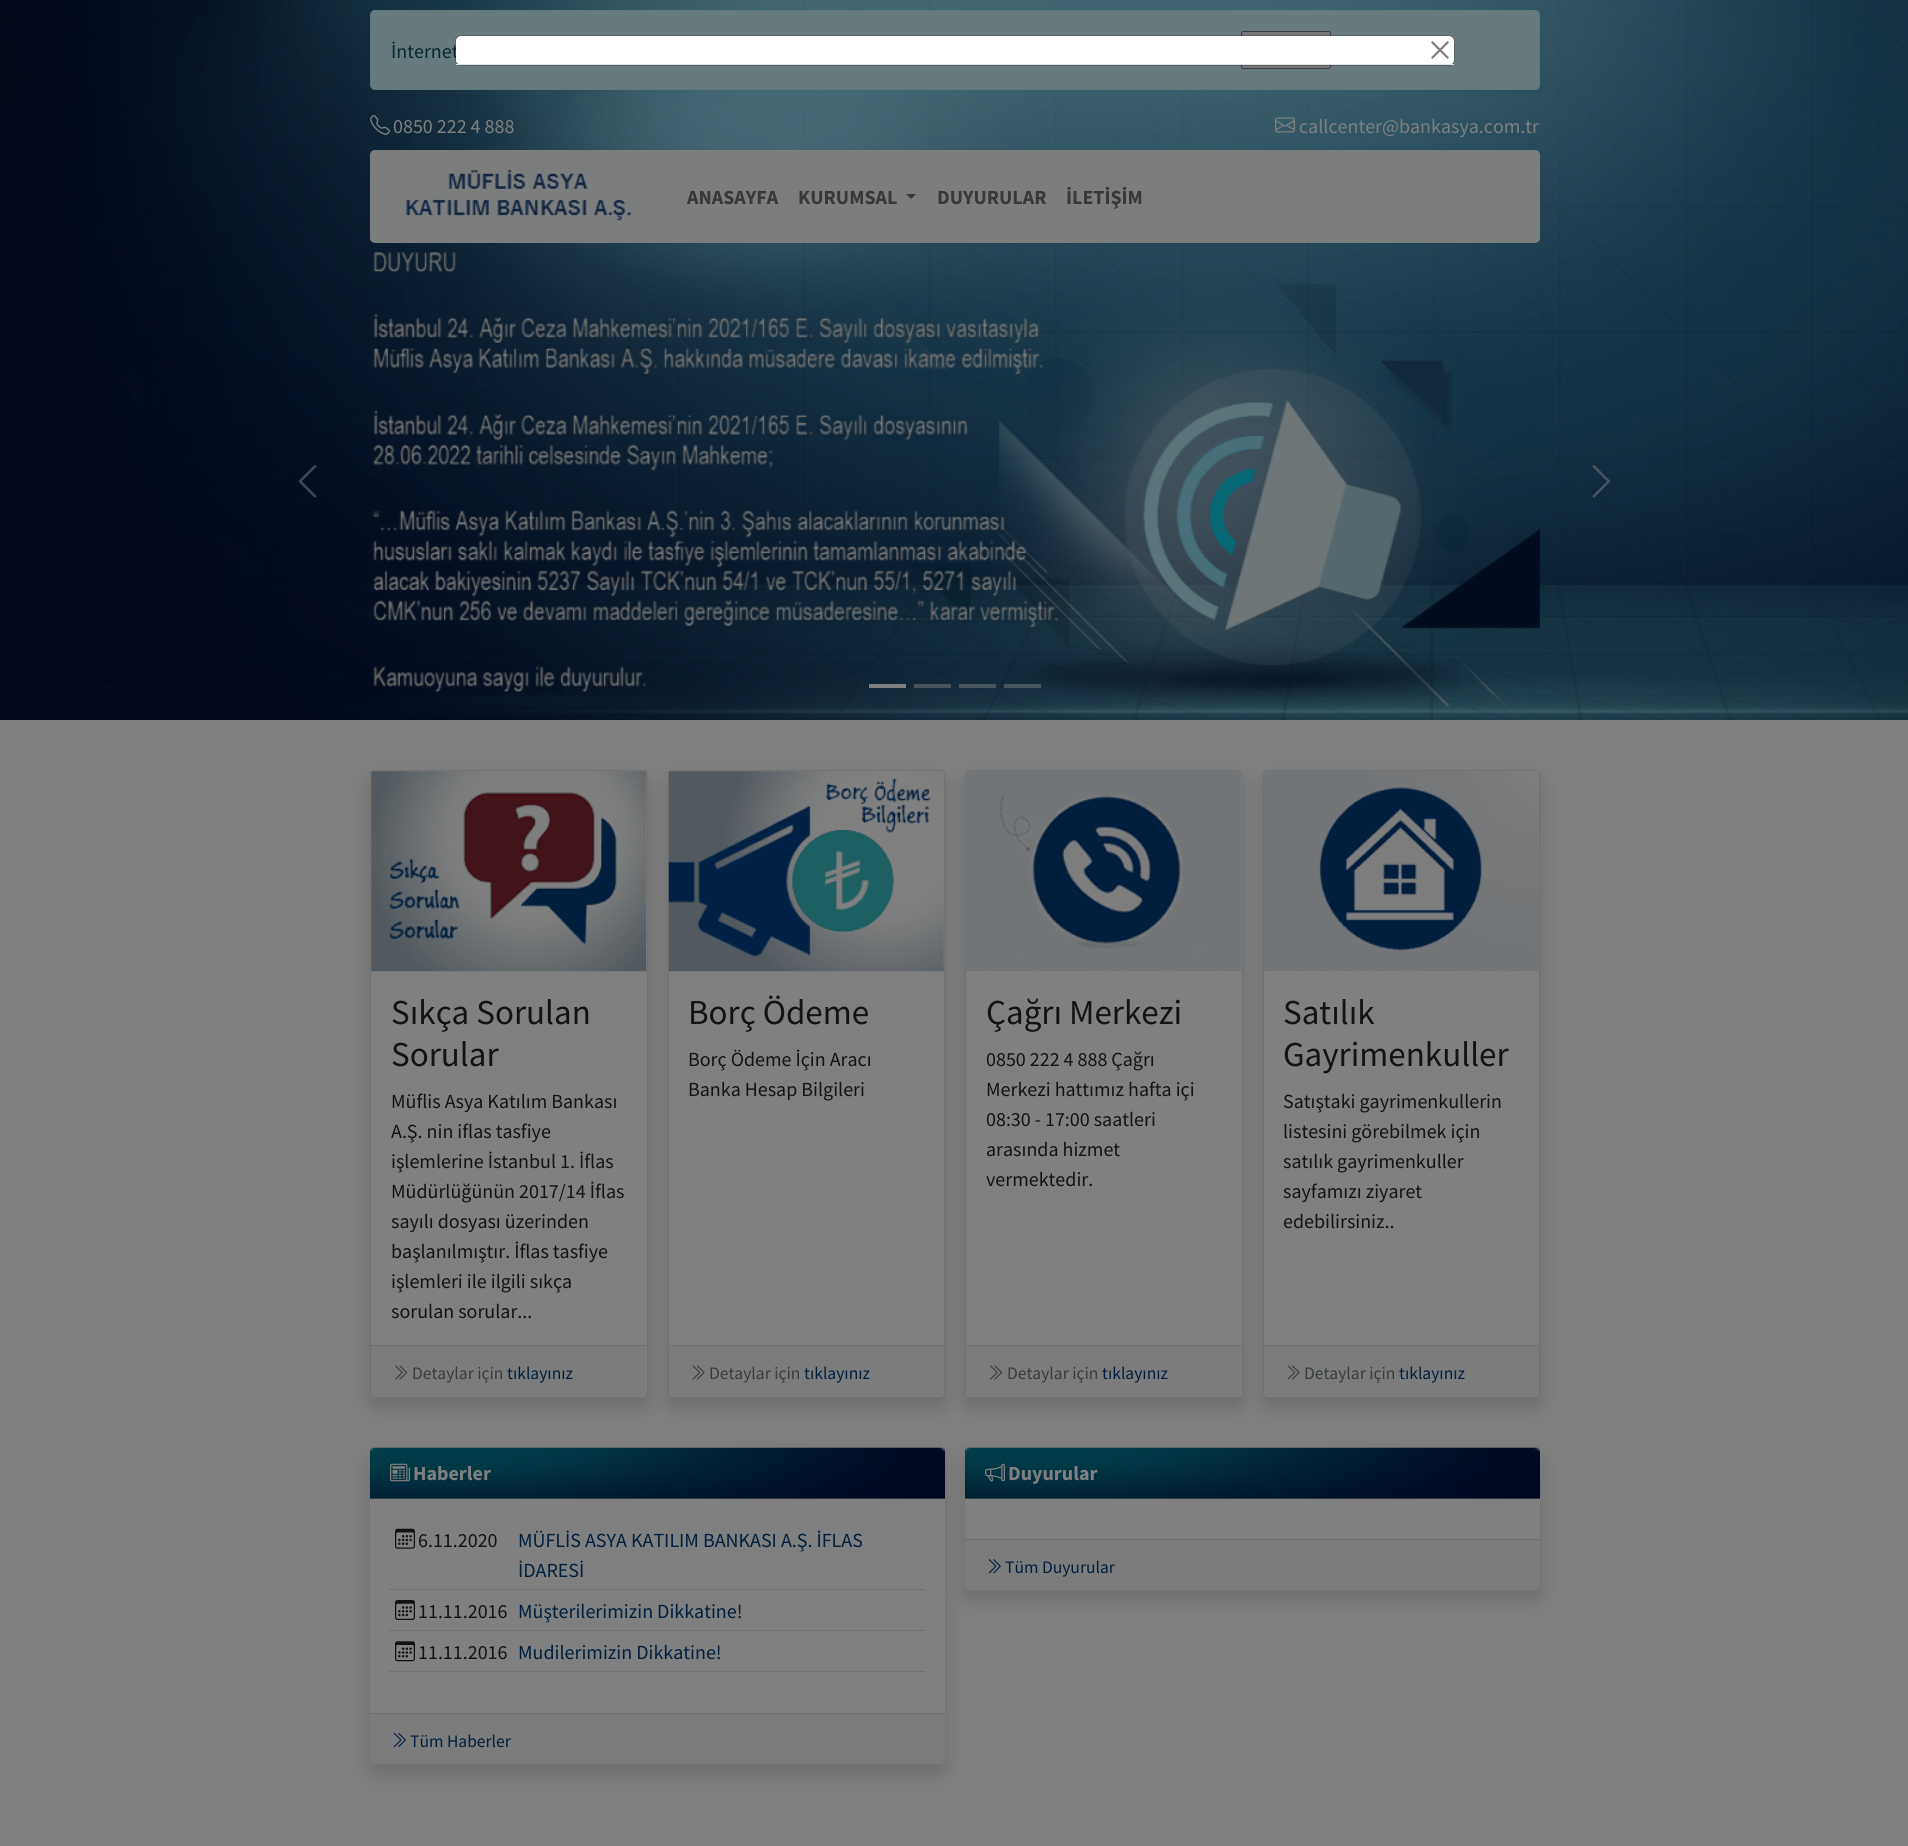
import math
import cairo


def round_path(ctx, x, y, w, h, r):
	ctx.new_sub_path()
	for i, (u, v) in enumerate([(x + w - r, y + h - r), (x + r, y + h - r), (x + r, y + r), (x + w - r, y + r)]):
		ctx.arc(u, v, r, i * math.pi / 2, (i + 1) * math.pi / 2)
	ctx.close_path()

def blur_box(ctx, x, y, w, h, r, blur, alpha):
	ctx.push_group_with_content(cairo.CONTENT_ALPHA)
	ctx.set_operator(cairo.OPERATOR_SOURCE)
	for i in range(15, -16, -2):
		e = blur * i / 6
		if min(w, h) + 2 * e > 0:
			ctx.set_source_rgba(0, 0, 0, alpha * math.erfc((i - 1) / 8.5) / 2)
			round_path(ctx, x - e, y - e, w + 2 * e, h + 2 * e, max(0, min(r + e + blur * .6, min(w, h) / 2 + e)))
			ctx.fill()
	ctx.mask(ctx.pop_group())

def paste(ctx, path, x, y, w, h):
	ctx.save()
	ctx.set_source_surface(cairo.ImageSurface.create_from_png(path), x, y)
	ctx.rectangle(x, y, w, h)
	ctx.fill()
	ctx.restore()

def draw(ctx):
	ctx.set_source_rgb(0.502, 0.502, 0.502)
	ctx.paint()
	paste(ctx, 'media/2.png', 0, 0, 1908, 720)
	ctx.set_source_rgb(0.408, 0.478, 0.494)
	round_path(ctx, 370.5, 10.5, 1169, 79, 4.5)
	ctx.fill_preserve()
	ctx.set_source_rgb(0.357, 0.471, 0.494)
	ctx.set_line_width(1)
	ctx.stroke()
	ctx.select_font_face('Source Sans Pro')
	ctx.set_font_size(20)
	ctx.set_source_rgb(0.012, 0.161, 0.188)
	ctx.move_to(391, 58)
	ctx.show_text('İnternet')
	ctx.set_source_rgb(0.471, 0.471, 0.471)
	round_path(ctx, 1241.5, 31.5, 89, 37, 2)
	ctx.fill_preserve()
	ctx.set_source_rgb(0.231, 0.231, 0.231)
	ctx.stroke()
	ctx.set_source_rgb(1, 1, 1)
	round_path(ctx, 456, 36, 998, 29, 5)
	ctx.fill()
	round_path(ctx, 455.5, 35.5, 999, 30, 5.5)
	ctx.set_source_rgba(0, 0, 0, 0.2)
	ctx.stroke()
	ctx.set_source_rgb(0.871, 0.886, 0.902)
	ctx.rectangle(456, 64, 998, 1)
	ctx.fill()
	paste(ctx, 'media/1.png', 1431, 41, 18, 18)
	paste(ctx, 'media/3.png', 370, 115, 20, 20)
	ctx.set_source_rgb(0.502, 0.502, 0.502)
	ctx.move_to(393, 133)
	ctx.show_text('0850 222 4 888')
	paste(ctx, 'media/4.png', 1275, 117, 20, 16)
	ctx.move_to(1299, 133)
	ctx.show_text('callcenter@bankasya.com.tr')
	ctx.set_source_rgb(0.486, 0.49, 0.49)
	round_path(ctx, 370, 150, 1170, 93, 5)
	ctx.fill()
	paste(ctx, 'media/5.png', 406, 169, 226, 52)
	ctx.select_font_face('Source Sans Pro', cairo.FONT_SLANT_NORMAL, cairo.FONT_WEIGHT_BOLD)
	ctx.set_source_rgb(0.22, 0.22, 0.224)
	ctx.move_to(687, 204)
	ctx.show_text('ANASAYFA')
	ctx.move_to(798, 204)
	ctx.show_text('KURUMSAL')
	ctx.new_path()
	ctx.move_to(906, 194)
	ctx.line_to(916, 194)
	ctx.line_to(911, 199)
	ctx.close_path()
	ctx.fill()
	ctx.move_to(937, 204)
	ctx.show_text('DUYURULAR')
	ctx.move_to(1066, 204)
	ctx.show_text('İLETİŞİM')
	paste(ctx, 'media/6.png', 298, 465, 19, 33)
	paste(ctx, 'media/7.png', 372, 252, 1168, 468)
	paste(ctx, 'media/8.png', 1592, 465, 18, 33)
	ctx.set_source_rgb(0.502, 0.502, 0.502)
	ctx.rectangle(869, 684, 37, 4)
	ctx.fill()
	ctx.set_source_rgba(0.502, 0.502, 0.502, 0.5)
	ctx.rectangle(914, 684, 37, 4)
	ctx.fill()
	ctx.rectangle(959, 684, 37, 4)
	ctx.fill()
	ctx.rectangle(1004, 684, 37, 4)
	ctx.fill()
	ctx.set_source_rgb(0, 0, 0)
	blur_box(ctx, 370, 780, 278, 628, 5, 10, 0.15)
	ctx.set_source_rgb(0.502, 0.502, 0.502)
	round_path(ctx, 370, 770, 278, 628, 5)
	ctx.fill()
	round_path(ctx, 370.5, 770.5, 277, 627, 4.5)
	ctx.set_source_rgba(0, 0, 0, 0.12)
	ctx.stroke()
	paste(ctx, 'media/9.png', 371, 771, 276, 201)
	ctx.select_font_face('Source Sans Pro')
	ctx.set_font_size(35)
	ctx.set_source_rgb(0.067, 0.075, 0.082)
	ctx.move_to(391, 1024)
	ctx.show_text('Sıkça Sorulan')
	ctx.move_to(391, 1066)
	ctx.show_text('Sorular')
	ctx.set_font_size(20)
	for x, y, s in [
		(391, 1108, 'Müflis Asya Katılım Bankası'),
		(391, 1138, 'A.Ş. nin iflas tasfiye'),
		(391, 1168, 'işlemlerine İstanbul 1. İflas'),
		(391, 1198, 'Müdürlüğünün 2017/14 İflas'),
		(391, 1228, 'sayılı dosyası üzerinden'),
		(391, 1258, 'başlanılmıştır. İflas tasfiye'),
		(391, 1288, 'işlemleri ile ilgili sıkça'),
		(391, 1318, 'sorulan sorular...'),
	]:
		ctx.move_to(x, y)
		ctx.show_text(s)
	ctx.set_source_rgb(0.486, 0.486, 0.486)
	ctx.new_path()
	ctx.move_to(371, 1345)
	ctx.line_to(646, 1345)
	ctx.line_to(646, 1392)
	ctx.curve_to(646, 1394, 644, 1396, 642, 1396)
	ctx.line_to(375, 1396)
	ctx.curve_to(373, 1396, 371, 1394, 371, 1392)
	ctx.close_path()
	ctx.fill()
	ctx.set_source_rgb(0.424, 0.424, 0.424)
	ctx.rectangle(371, 1345, 275, 1)
	ctx.fill()
	paste(ctx, 'media/10.png', 395, 1365, 13, 15)
	ctx.set_font_size(17.5)
	ctx.set_source_rgb(0.212, 0.231, 0.247)
	ctx.move_to(412, 1379)
	ctx.show_text('Detaylar için')
	ctx.set_source_rgb(0, 0.122, 0.243)
	ctx.move_to(507, 1379)
	ctx.show_text('tıklayınız')
	ctx.set_source_rgb(0, 0, 0)
	blur_box(ctx, 668, 780, 277, 628, 5, 10, 0.15)
	ctx.set_source_rgb(0.502, 0.502, 0.502)
	round_path(ctx, 668, 770, 277, 628, 5)
	ctx.fill()
	round_path(ctx, 668.5, 770.5, 276, 627, 4.5)
	ctx.set_source_rgba(0, 0, 0, 0.12)
	ctx.stroke()
	paste(ctx, 'media/11.png', 668, 771, 276, 201)
	ctx.set_font_size(35)
	ctx.set_source_rgb(0.067, 0.075, 0.082)
	ctx.move_to(688, 1024)
	ctx.show_text('Borç Ödeme')
	ctx.set_font_size(20)
	ctx.move_to(688, 1066)
	ctx.show_text('Borç Ödeme İçin Aracı')
	ctx.move_to(688, 1096)
	ctx.show_text('Banka Hesap Bilgileri')
	ctx.set_source_rgb(0.486, 0.486, 0.486)
	ctx.new_path()
	ctx.move_to(669, 1345)
	ctx.line_to(944, 1345)
	ctx.line_to(944, 1392)
	ctx.curve_to(944, 1394, 942, 1396, 940, 1396)
	ctx.line_to(673, 1396)
	ctx.curve_to(671, 1396, 669, 1394, 669, 1392)
	ctx.close_path()
	ctx.fill()
	ctx.set_source_rgb(0.424, 0.424, 0.424)
	ctx.rectangle(669, 1345, 275, 1)
	ctx.fill()
	paste(ctx, 'media/12.png', 692, 1365, 13, 15)
	ctx.set_font_size(17.5)
	ctx.set_source_rgb(0.212, 0.231, 0.247)
	ctx.move_to(709, 1379)
	ctx.show_text('Detaylar için')
	ctx.set_source_rgb(0, 0.122, 0.243)
	ctx.move_to(804, 1379)
	ctx.show_text('tıklayınız')
	ctx.set_source_rgb(0, 0, 0)
	blur_box(ctx, 965, 780, 278, 628, 5, 10, 0.15)
	ctx.set_source_rgb(0.502, 0.502, 0.502)
	round_path(ctx, 965, 770, 278, 628, 5)
	ctx.fill()
	round_path(ctx, 965.5, 770.5, 277, 627, 4.5)
	ctx.set_source_rgba(0, 0, 0, 0.12)
	ctx.stroke()
	paste(ctx, 'media/13.png', 966, 771, 276, 201)
	ctx.set_font_size(35)
	ctx.set_source_rgb(0.067, 0.075, 0.082)
	ctx.move_to(986, 1024)
	ctx.show_text('Çağrı Merkezi')
	ctx.set_font_size(20)
	for x, y, s in [
		(986, 1066, '0850 222 4 888 Çağrı'),
		(986, 1096, 'Merkezi hattımız hafta içi'),
		(986, 1126, '08:30 - 17:00 saatleri'),
		(986, 1156, 'arasında hizmet'),
		(986, 1186, 'vermektedir.'),
	]:
		ctx.move_to(x, y)
		ctx.show_text(s)
	ctx.set_source_rgb(0.486, 0.486, 0.486)
	ctx.new_path()
	ctx.move_to(966, 1345)
	ctx.line_to(1241, 1345)
	ctx.line_to(1241, 1392)
	ctx.curve_to(1241, 1394, 1239, 1396, 1237, 1396)
	ctx.line_to(970, 1396)
	ctx.curve_to(968, 1396, 966, 1394, 966, 1392)
	ctx.close_path()
	ctx.fill()
	ctx.set_source_rgb(0.424, 0.424, 0.424)
	ctx.rectangle(966, 1345, 275, 1)
	ctx.fill()
	paste(ctx, 'media/10.png', 990, 1365, 13, 15)
	ctx.set_font_size(17.5)
	ctx.set_source_rgb(0.212, 0.231, 0.247)
	ctx.move_to(1007, 1379)
	ctx.show_text('Detaylar için')
	ctx.set_source_rgb(0, 0.122, 0.243)
	ctx.move_to(1102, 1379)
	ctx.show_text('tıklayınız')
	ctx.set_source_rgb(0, 0, 0)
	blur_box(ctx, 1263, 780, 277, 628, 5, 10, 0.15)
	ctx.set_source_rgb(0.502, 0.502, 0.502)
	round_path(ctx, 1263, 770, 277, 628, 5)
	ctx.fill()
	round_path(ctx, 1263.5, 770.5, 276, 627, 4.5)
	ctx.set_source_rgba(0, 0, 0, 0.12)
	ctx.stroke()
	paste(ctx, 'media/14.png', 1264, 771, 275, 201)
	ctx.set_font_size(35)
	ctx.set_source_rgb(0.067, 0.075, 0.082)
	ctx.move_to(1283, 1024)
	ctx.show_text('Satılık')
	ctx.move_to(1283, 1066)
	ctx.show_text('Gayrimenkuller')
	ctx.set_font_size(20)
	for x, y, s in [
		(1283, 1108, 'Satıştaki gayrimenkullerin'),
		(1283, 1138, 'listesini görebilmek için'),
		(1283, 1168, 'satılık gayrimenkuller'),
		(1283, 1198, 'sayfamızı ziyaret'),
		(1283, 1228, 'edebilirsiniz..'),
	]:
		ctx.move_to(x, y)
		ctx.show_text(s)
	ctx.set_source_rgb(0.486, 0.486, 0.486)
	ctx.new_path()
	ctx.move_to(1264, 1345)
	ctx.line_to(1539, 1345)
	ctx.line_to(1539, 1392)
	ctx.curve_to(1539, 1394, 1537, 1396, 1535, 1396)
	ctx.line_to(1268, 1396)
	ctx.curve_to(1266, 1396, 1264, 1394, 1264, 1392)
	ctx.close_path()
	ctx.fill()
	ctx.set_source_rgb(0.424, 0.424, 0.424)
	ctx.rectangle(1264, 1345, 275, 1)
	ctx.fill()
	paste(ctx, 'media/12.png', 1287, 1365, 13, 15)
	ctx.set_font_size(17.5)
	ctx.set_source_rgb(0.212, 0.231, 0.247)
	ctx.move_to(1304, 1379)
	ctx.show_text('Detaylar için')
	ctx.set_source_rgb(0, 0.122, 0.243)
	ctx.move_to(1399, 1379)
	ctx.show_text('tıklayınız')
	ctx.set_source_rgb(0, 0, 0)
	blur_box(ctx, 370, 1458, 575, 316, 5, 10, 0.15)
	ctx.set_source_rgb(0.502, 0.502, 0.502)
	round_path(ctx, 370, 1448, 575, 316, 5)
	ctx.fill()
	ctx.set_source_rgb(0.486, 0.486, 0.486)
	ctx.new_path()
	ctx.move_to(374, 1448)
	ctx.line_to(941, 1448)
	ctx.curve_to(943, 1448, 945, 1450, 945, 1452)
	ctx.line_to(945, 1499)
	ctx.line_to(370, 1499)
	ctx.line_to(370, 1452)
	ctx.curve_to(370, 1450, 372, 1448, 374, 1448)
	ctx.close_path()
	ctx.fill()
	paste(ctx, 'media/15.png', 370, 1447, 575, 52)
	ctx.set_source_rgba(0, 0, 0, 0.12)
	ctx.rectangle(370, 1498, 575, 1)
	ctx.fill()
	paste(ctx, 'media/16.png', 390, 1463, 20, 19)
	ctx.select_font_face('Source Sans Pro', cairo.FONT_SLANT_NORMAL, cairo.FONT_WEIGHT_BOLD)
	ctx.set_font_size(20)
	ctx.set_source_rgb(0.502, 0.502, 0.502)
	ctx.move_to(413, 1480)
	ctx.show_text('Haberler')
	paste(ctx, 'media/17.png', 395, 1528, 20, 21)
	ctx.select_font_face('Source Sans Pro')
	ctx.set_source_rgb(0.067, 0.075, 0.082)
	ctx.move_to(418, 1547)
	ctx.show_text('6.11.2020')
	ctx.set_source_rgb(0.435, 0.443, 0.451)
	ctx.rectangle(389, 1589, 536, 1)
	ctx.fill()
	ctx.set_source_rgb(0, 0.122, 0.243)
	ctx.move_to(518, 1547)
	ctx.show_text('MÜFLİS ASYA KATILIM BANKASI A.Ş. İFLAS')
	ctx.move_to(518, 1577)
	ctx.show_text('İDARESİ')
	paste(ctx, 'media/18.png', 395, 1600, 20, 20)
	ctx.set_source_rgb(0.067, 0.075, 0.082)
	ctx.move_to(418, 1618)
	ctx.show_text('11.11.2016')
	ctx.set_source_rgb(0.435, 0.443, 0.451)
	ctx.rectangle(389, 1630, 536, 1)
	ctx.fill()
	ctx.set_source_rgb(0, 0.122, 0.243)
	ctx.move_to(518, 1618)
	ctx.show_text('Müşterilerimizin Dikkatine!')
	paste(ctx, 'media/19.png', 395, 1641, 20, 21)
	ctx.set_source_rgb(0.067, 0.075, 0.082)
	ctx.move_to(418, 1659)
	ctx.show_text('11.11.2016')
	ctx.set_source_rgb(0.435, 0.443, 0.451)
	ctx.rectangle(389, 1671, 536, 1)
	ctx.fill()
	ctx.set_source_rgb(0, 0.122, 0.243)
	ctx.move_to(518, 1659)
	ctx.show_text('Mudilerimizin Dikkatine!')
	ctx.set_source_rgba(0, 0, 0, 0.03)
	ctx.rectangle(370, 1714, 575, 50)
	ctx.fill()
	ctx.set_source_rgb(0.424, 0.424, 0.424)
	ctx.rectangle(370, 1713, 575, 1)
	ctx.fill()
	paste(ctx, 'media/20.png', 393, 1732, 13, 16)
	ctx.set_font_size(17.5)
	ctx.set_source_rgb(0, 0.122, 0.243)
	ctx.move_to(410, 1747)
	ctx.show_text('Tüm Haberler')
	ctx.set_source_rgb(0, 0, 0)
	blur_box(ctx, 965, 1458, 575, 142, 5, 10, 0.15)
	ctx.set_source_rgb(0.502, 0.502, 0.502)
	round_path(ctx, 965, 1448, 575, 142, 5)
	ctx.fill()
	ctx.set_source_rgb(0.486, 0.486, 0.486)
	ctx.new_path()
	ctx.move_to(969, 1448)
	ctx.line_to(1536, 1448)
	ctx.curve_to(1538, 1448, 1540, 1450, 1540, 1452)
	ctx.line_to(1540, 1499)
	ctx.line_to(965, 1499)
	ctx.line_to(965, 1452)
	ctx.curve_to(965, 1450, 967, 1448, 969, 1448)
	ctx.close_path()
	ctx.fill()
	paste(ctx, 'media/21.png', 965, 1447, 575, 52)
	ctx.set_source_rgba(0, 0, 0, 0.12)
	ctx.rectangle(965, 1498, 575, 1)
	ctx.fill()
	paste(ctx, 'media/22.png', 985, 1463, 20, 19)
	ctx.select_font_face('Source Sans Pro', cairo.FONT_SLANT_NORMAL, cairo.FONT_WEIGHT_BOLD)
	ctx.set_font_size(20)
	ctx.set_source_rgb(0.502, 0.502, 0.502)
	ctx.move_to(1008, 1480)
	ctx.show_text('Duyurular')
	ctx.set_source_rgba(0, 0, 0, 0.03)
	ctx.rectangle(965, 1540, 575, 50)
	ctx.fill()
	ctx.set_source_rgb(0.424, 0.424, 0.424)
	ctx.rectangle(965, 1539, 575, 1)
	ctx.fill()
	paste(ctx, 'media/23.png', 988, 1559, 13, 15)
	ctx.select_font_face('Source Sans Pro')
	ctx.set_font_size(17.5)
	ctx.set_source_rgb(0, 0.122, 0.243)
	ctx.move_to(1005, 1573)
	ctx.show_text('Tüm Duyurular')


surface = cairo.ImageSurface(cairo.FORMAT_RGB24, 1908, 1846)
ctx = cairo.Context(surface)
options = cairo.FontOptions()
options.set_hint_metrics(cairo.HINT_METRICS_OFF)
options.set_hint_style(cairo.HINT_STYLE_NONE)
ctx.set_font_options(options)
ctx.set_miter_limit(4)
draw(ctx)
surface.write_to_png('image.png')
